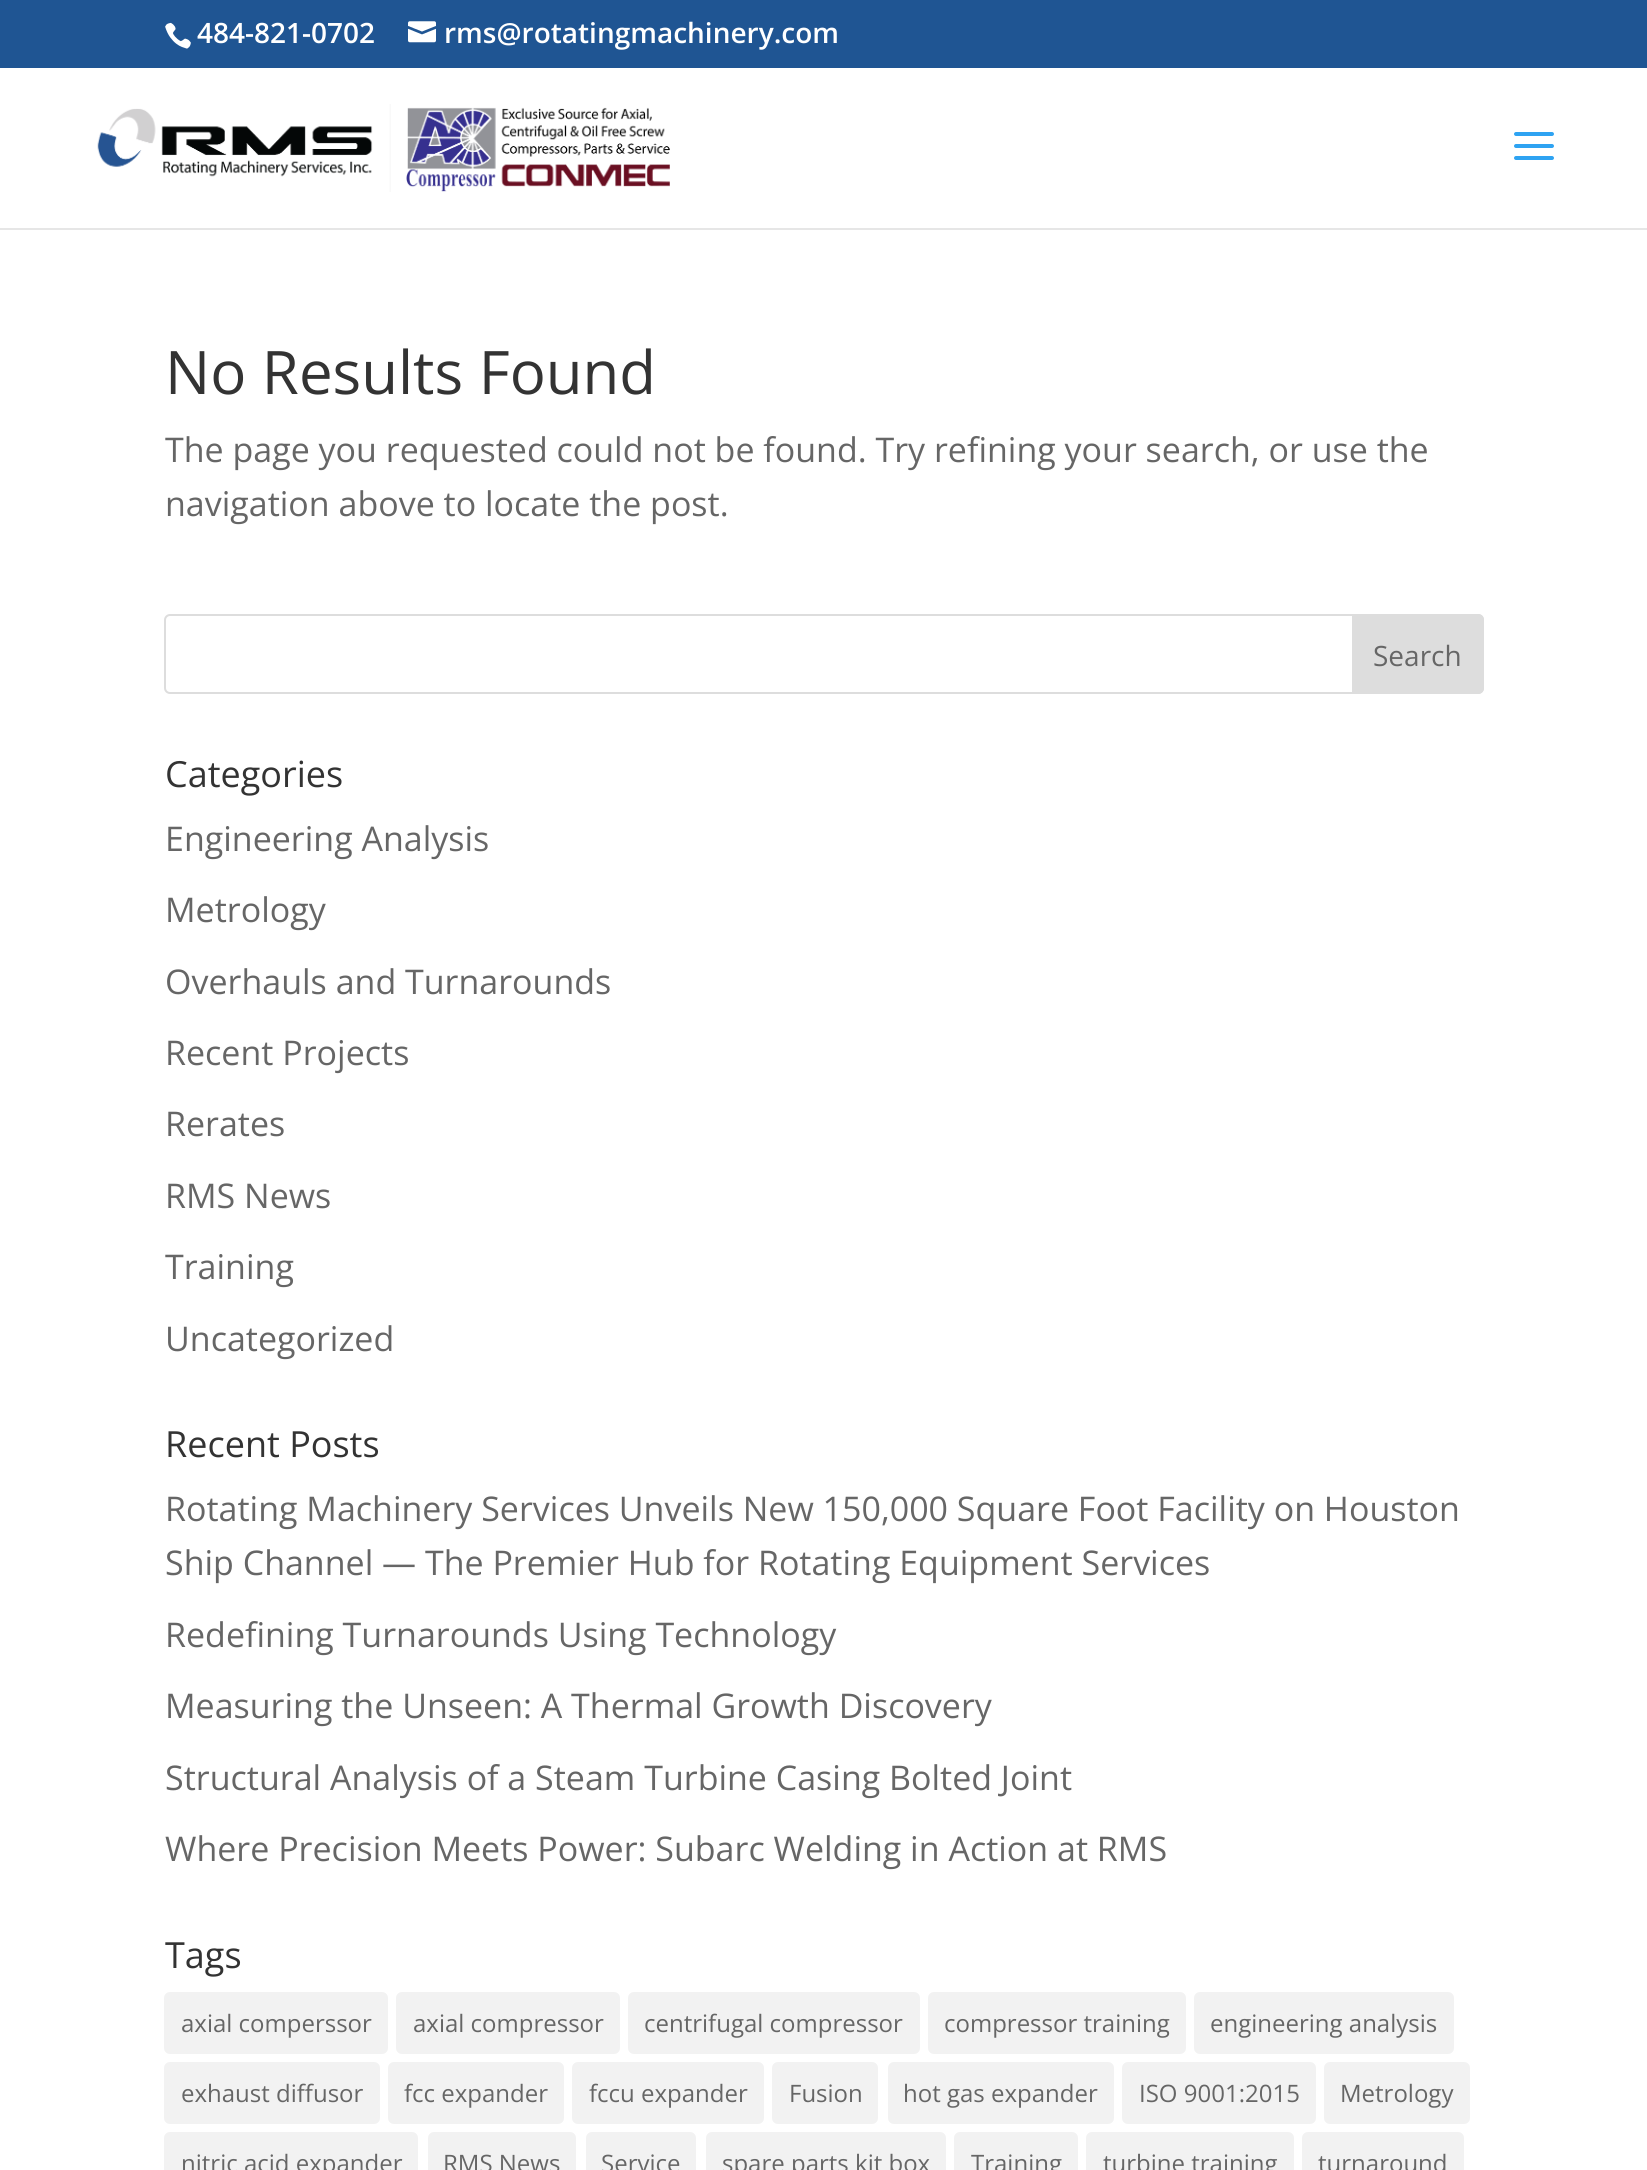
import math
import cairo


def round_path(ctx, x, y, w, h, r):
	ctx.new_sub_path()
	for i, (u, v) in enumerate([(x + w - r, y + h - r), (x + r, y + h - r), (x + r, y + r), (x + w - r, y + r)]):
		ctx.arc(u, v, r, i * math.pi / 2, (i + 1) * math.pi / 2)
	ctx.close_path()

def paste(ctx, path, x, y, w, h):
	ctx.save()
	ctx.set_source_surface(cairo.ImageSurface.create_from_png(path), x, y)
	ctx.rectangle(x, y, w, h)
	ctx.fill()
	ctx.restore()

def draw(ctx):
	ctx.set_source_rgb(1, 1, 1)
	ctx.paint()
	ctx.set_source_rgb(0.122, 0.333, 0.576)
	ctx.rectangle(0, 0, 1647, 68)
	ctx.fill()
	paste(ctx, 'media/1.png', 165, 22, 26, 27)
	ctx.select_font_face('Open Sans SemiBold')
	ctx.set_font_size(28)
	ctx.set_source_rgb(1, 1, 1)
	ctx.move_to(197, 43)
	ctx.show_text('484-821-0702')
	paste(ctx, 'media/2.png', 408, 21, 28, 22)
	ctx.move_to(444, 43)
	ctx.show_text('rms@rotatingmachinery.com')
	ctx.set_source_rgb(0.902, 0.902, 0.902)
	ctx.rectangle(0, 228, 1647, 2)
	ctx.fill()
	paste(ctx, 'media/3.png', 97, 104, 573, 88)
	paste(ctx, 'media/4.png', 1514, 132, 40, 28)
	ctx.select_font_face('Open Sans')
	ctx.set_font_size(60)
	ctx.set_source_rgb(0.2, 0.2, 0.2)
	ctx.move_to(165, 394)
	ctx.show_text('No Results Found')
	ctx.set_font_size(34)
	ctx.set_source_rgb(0.4, 0.4, 0.4)
	ctx.move_to(165, 462)
	ctx.show_text('The page you requested could not be found. Try refining your search, or use the')
	ctx.move_to(165, 516)
	ctx.show_text('navigation above to locate the post.')
	round_path(ctx, 165, 615, 1318, 78, 5)
	ctx.set_source_rgb(0.867, 0.867, 0.867)
	ctx.stroke()
	ctx.new_path()
	ctx.move_to(1353, 615)
	ctx.line_to(1478, 615)
	ctx.curve_to(1481, 615, 1483, 617, 1483, 620)
	ctx.line_to(1483, 688)
	ctx.curve_to(1483, 691, 1481, 693, 1478, 693)
	ctx.line_to(1353, 693)
	ctx.close_path()
	ctx.fill_preserve()
	ctx.stroke()
	ctx.set_font_size(28)
	ctx.set_source_rgb(0.4, 0.4, 0.4)
	ctx.move_to(1373, 666)
	ctx.show_text('Search')
	ctx.set_font_size(36)
	ctx.set_source_rgb(0.2, 0.2, 0.2)
	ctx.move_to(165, 787)
	ctx.show_text('Categories')
	ctx.set_font_size(34)
	ctx.set_source_rgb(0.4, 0.4, 0.4)
	for x, y, s in [
		(165, 851, 'Engineering Analysis'),
		(165, 922, 'Metrology'),
		(165, 994, 'Overhauls and Turnarounds'),
		(165, 1065, 'Recent Projects'),
		(165, 1136, 'Rerates'),
		(165, 1208, 'RMS News'),
		(165, 1279, 'Training'),
		(165, 1351, 'Uncategorized'),
	]:
		ctx.move_to(x, y)
		ctx.show_text(s)
	ctx.set_font_size(36)
	ctx.set_source_rgb(0.2, 0.2, 0.2)
	ctx.move_to(165, 1457)
	ctx.show_text('Recent Posts')
	ctx.set_font_size(34)
	ctx.set_source_rgb(0.4, 0.4, 0.4)
	for x, y, s in [
		(165, 1521, 'Rotating Machinery Services Unveils New 150,000 Square Foot Facility on Houston'),
		(165, 1575, 'Ship Channel — The Premier Hub for Rotating Equipment Services'),
		(165, 1647, 'Redefining Turnarounds Using Technology'),
		(165, 1718, 'Measuring the Unseen: A Thermal Growth Discovery'),
		(165, 1790, 'Structural Analysis of a Steam Turbine Casing Bolted Joint'),
		(165, 1861, 'Where Precision Meets Power: Subarc Welding in Action at RMS'),
	]:
		ctx.move_to(x, y)
		ctx.show_text(s)
	ctx.set_font_size(36)
	ctx.set_source_rgb(0.2, 0.2, 0.2)
	ctx.move_to(165, 1968)
	ctx.show_text('Tags')
	ctx.set_source_rgb(0.949, 0.949, 0.949)
	round_path(ctx, 164, 1992, 224, 62, 6)
	ctx.fill()
	ctx.set_font_size(24)
	ctx.set_source_rgb(0.4, 0.4, 0.4)
	ctx.move_to(181, 2032)
	ctx.show_text('axial comperssor')
	ctx.set_source_rgb(0.949, 0.949, 0.949)
	round_path(ctx, 396, 1992, 224, 62, 6)
	ctx.fill()
	ctx.set_source_rgb(0.4, 0.4, 0.4)
	ctx.move_to(413, 2032)
	ctx.show_text('axial compressor')
	ctx.set_source_rgb(0.949, 0.949, 0.949)
	round_path(ctx, 628, 1992, 292, 62, 6)
	ctx.fill()
	ctx.set_source_rgb(0.4, 0.4, 0.4)
	ctx.move_to(644, 2032)
	ctx.show_text('centrifugal compressor')
	ctx.set_source_rgb(0.949, 0.949, 0.949)
	round_path(ctx, 928, 1992, 258, 62, 6)
	ctx.fill()
	ctx.set_source_rgb(0.4, 0.4, 0.4)
	ctx.move_to(944, 2032)
	ctx.show_text('compressor training')
	ctx.set_source_rgb(0.949, 0.949, 0.949)
	round_path(ctx, 1194, 1992, 260, 62, 6)
	ctx.fill()
	ctx.set_source_rgb(0.4, 0.4, 0.4)
	ctx.move_to(1210, 2032)
	ctx.show_text('engineering analysis')
	ctx.set_source_rgb(0.949, 0.949, 0.949)
	round_path(ctx, 164, 2062, 216, 62, 6)
	ctx.fill()
	ctx.set_source_rgb(0.4, 0.4, 0.4)
	ctx.move_to(181, 2102)
	ctx.show_text('exhaust diffusor')
	ctx.set_source_rgb(0.949, 0.949, 0.949)
	round_path(ctx, 388, 2062, 176, 62, 6)
	ctx.fill()
	ctx.set_source_rgb(0.4, 0.4, 0.4)
	ctx.move_to(404, 2102)
	ctx.show_text('fcc expander')
	ctx.set_source_rgb(0.949, 0.949, 0.949)
	round_path(ctx, 572, 2062, 192, 62, 6)
	ctx.fill()
	ctx.set_source_rgb(0.4, 0.4, 0.4)
	ctx.move_to(589, 2102)
	ctx.show_text('fccu expander')
	ctx.set_source_rgb(0.949, 0.949, 0.949)
	round_path(ctx, 772, 2062, 106, 62, 6)
	ctx.fill()
	ctx.set_source_rgb(0.4, 0.4, 0.4)
	ctx.move_to(789, 2102)
	ctx.show_text('Fusion')
	ctx.set_source_rgb(0.949, 0.949, 0.949)
	round_path(ctx, 888, 2062, 226, 62, 6)
	ctx.fill()
	ctx.set_source_rgb(0.4, 0.4, 0.4)
	ctx.move_to(903, 2102)
	ctx.show_text('hot gas expander')
	ctx.set_source_rgb(0.949, 0.949, 0.949)
	round_path(ctx, 1122, 2062, 194, 62, 6)
	ctx.fill()
	ctx.set_source_rgb(0.4, 0.4, 0.4)
	ctx.move_to(1139, 2102)
	ctx.show_text('ISO 9001:2015')
	ctx.set_source_rgb(0.949, 0.949, 0.949)
	round_path(ctx, 1324, 2062, 146, 62, 6)
	ctx.fill()
	ctx.set_source_rgb(0.4, 0.4, 0.4)
	ctx.move_to(1340, 2102)
	ctx.show_text('Metrology')
	ctx.set_source_rgb(0.949, 0.949, 0.949)
	round_path(ctx, 164, 2132, 254, 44, 6)
	ctx.fill()
	ctx.set_source_rgb(0.4, 0.4, 0.4)
	ctx.move_to(181, 2172)
	ctx.show_text('nitric acid expander')
	ctx.set_source_rgb(0.949, 0.949, 0.949)
	round_path(ctx, 428, 2132, 148, 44, 6)
	ctx.fill()
	ctx.set_source_rgb(0.4, 0.4, 0.4)
	ctx.move_to(443, 2172)
	ctx.show_text('RMS News')
	ctx.set_source_rgb(0.949, 0.949, 0.949)
	round_path(ctx, 586, 2132, 110, 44, 6)
	ctx.fill()
	ctx.set_source_rgb(0.4, 0.4, 0.4)
	ctx.move_to(601, 2172)
	ctx.show_text('Service')
	ctx.set_source_rgb(0.949, 0.949, 0.949)
	round_path(ctx, 706, 2132, 240, 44, 6)
	ctx.fill()
	ctx.set_source_rgb(0.4, 0.4, 0.4)
	ctx.move_to(722, 2172)
	ctx.show_text('spare parts kit box')
	ctx.set_source_rgb(0.949, 0.949, 0.949)
	round_path(ctx, 954, 2132, 124, 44, 6)
	ctx.fill()
	ctx.set_source_rgb(0.4, 0.4, 0.4)
	ctx.move_to(971, 2172)
	ctx.show_text('Training')
	ctx.set_source_rgb(0.949, 0.949, 0.949)
	round_path(ctx, 1086, 2132, 208, 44, 6)
	ctx.fill()
	ctx.set_source_rgb(0.4, 0.4, 0.4)
	ctx.move_to(1103, 2172)
	ctx.show_text('turbine training')
	ctx.set_source_rgb(0.949, 0.949, 0.949)
	round_path(ctx, 1302, 2132, 162, 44, 6)
	ctx.fill()
	ctx.set_source_rgb(0.4, 0.4, 0.4)
	ctx.move_to(1318, 2172)
	ctx.show_text('turnaround')


surface = cairo.ImageSurface(cairo.FORMAT_RGB24, 1647, 2170)
ctx = cairo.Context(surface)
options = cairo.FontOptions()
options.set_hint_metrics(cairo.HINT_METRICS_OFF)
options.set_hint_style(cairo.HINT_STYLE_NONE)
ctx.set_font_options(options)
ctx.set_miter_limit(4)
draw(ctx)
surface.write_to_png('image.png')
